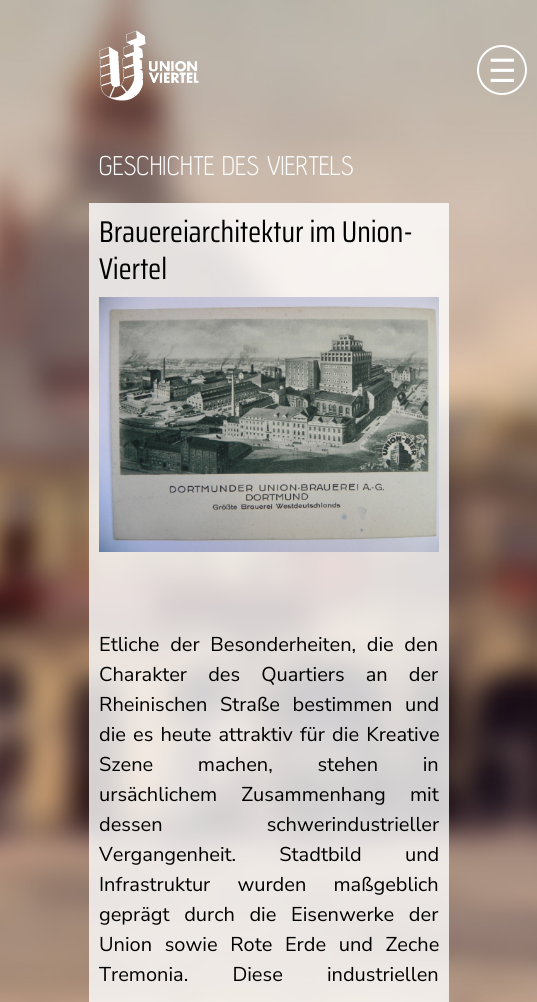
import math
import cairo


def write_spaced(ctx, x, y, s, letter, word):
	ctx.move_to(x, y)
	for ch in s:
		ctx.show_text(ch)
		ctx.rel_move_to(letter + word * (ch == ' '), 0)

def paste(ctx, path, x, y, w, h):
	ctx.save()
	ctx.set_source_surface(cairo.ImageSurface.create_from_png(path), x, y)
	ctx.rectangle(x, y, w, h)
	ctx.fill()
	ctx.restore()

def draw(ctx):
	ctx.set_source_rgb(1, 1, 1)
	ctx.paint()
	paste(ctx, 'media/1.png', 0, 0, 537, 1002)
	paste(ctx, 'media/2.png', 99, 30, 100, 71)
	ctx.arc(502, 70, 24, 0, 2 * math.pi)
	ctx.set_source_rgb(1, 1, 1)
	ctx.stroke()
	ctx.select_font_face('DejaVu Sans')
	ctx.set_font_size(32)
	ctx.move_to(488, 82)
	ctx.show_text('☰')
	ctx.select_font_face('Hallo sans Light')
	ctx.set_font_size(30)
	ctx.move_to(99, 175)
	ctx.show_text('GESCHICHTE DES VIERTELS')
	ctx.set_source_rgba(1, 1, 1, 0.8)
	ctx.rectangle(89, 203, 360, 799)
	ctx.fill()
	ctx.select_font_face('Saira Condensed')
	ctx.set_source_rgb(0, 0, 0)
	ctx.move_to(99, 242)
	ctx.show_text('Brauereiarchitektur im Union-')
	ctx.move_to(99, 279)
	ctx.show_text('Viertel')
	paste(ctx, 'media/3.png', 99, 297, 340, 255)
	ctx.select_font_face('Nunito Sans ExtraLight')
	ctx.set_font_size(20)
	write_spaced(ctx, 99, 651, 'Etliche der Besonderheiten, die den', 0, 5.5)
	write_spaced(ctx, 99, 681, 'Charakter des Quartiers an der', 0, 16)
	write_spaced(ctx, 99, 711, 'Rheinischen Straße bestimmen und', 0, 7.5)
	write_spaced(ctx, 99, 741, 'die es heute attraktiv für die Kreative', 0, 2)
	write_spaced(ctx, 99, 771, 'Szene machen, stehen in', 0, 39.5)
	write_spaced(ctx, 99, 801, 'ursächlichem Zusammenhang mit', 0, 19)
	write_spaced(ctx, 99, 831, 'dessen schwerindustrieller', 0, 99)
	write_spaced(ctx, 99, 861, 'Vergangenheit. Stadtbild und', 0, 38)
	write_spaced(ctx, 99, 891, 'Infrastruktur wurden maßgeblich', 0, 22)
	write_spaced(ctx, 99, 921, 'geprägt durch die Eisenwerke der', 0, 9.5)
	write_spaced(ctx, 99, 951, 'Union sowie Rote Erde und Zeche', 0, 7.5)
	write_spaced(ctx, 99, 981, 'Tremonia. Diese industriellen', 0, 39)


surface = cairo.ImageSurface(cairo.FORMAT_RGB24, 537, 1002)
ctx = cairo.Context(surface)
options = cairo.FontOptions()
options.set_hint_metrics(cairo.HINT_METRICS_OFF)
options.set_hint_style(cairo.HINT_STYLE_NONE)
ctx.set_font_options(options)
ctx.set_miter_limit(4)
draw(ctx)
surface.write_to_png('image.png')
